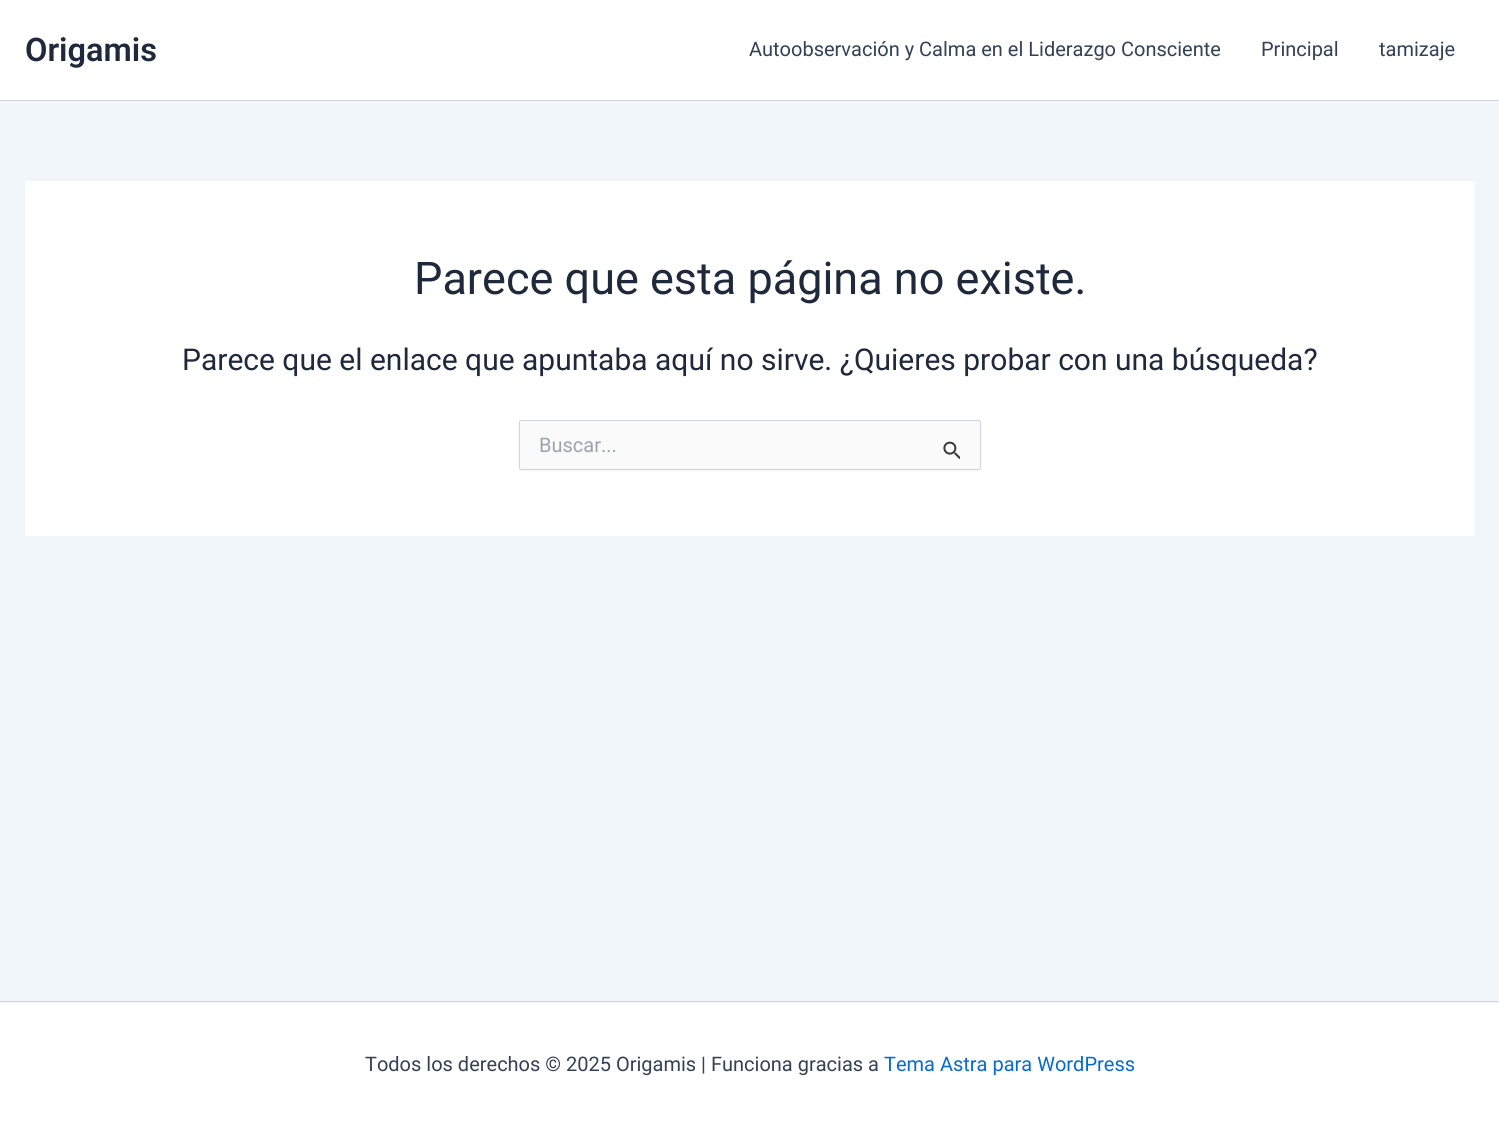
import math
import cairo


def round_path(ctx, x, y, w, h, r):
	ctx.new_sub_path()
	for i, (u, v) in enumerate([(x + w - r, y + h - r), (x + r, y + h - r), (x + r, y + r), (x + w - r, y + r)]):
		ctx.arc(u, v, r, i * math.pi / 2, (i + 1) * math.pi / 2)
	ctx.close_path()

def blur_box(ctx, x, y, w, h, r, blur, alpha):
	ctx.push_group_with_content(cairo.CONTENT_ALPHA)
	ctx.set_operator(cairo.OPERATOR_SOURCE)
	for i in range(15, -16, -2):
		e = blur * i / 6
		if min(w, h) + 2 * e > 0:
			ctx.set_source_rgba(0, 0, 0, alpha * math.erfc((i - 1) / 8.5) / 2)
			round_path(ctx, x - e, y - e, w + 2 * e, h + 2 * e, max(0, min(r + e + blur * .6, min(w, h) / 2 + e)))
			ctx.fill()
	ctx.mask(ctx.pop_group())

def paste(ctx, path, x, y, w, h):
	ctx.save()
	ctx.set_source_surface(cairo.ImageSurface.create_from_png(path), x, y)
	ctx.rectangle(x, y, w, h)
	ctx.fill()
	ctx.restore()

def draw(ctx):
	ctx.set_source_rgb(0.941, 0.961, 0.98)
	ctx.paint()
	ctx.set_source_rgb(1, 1, 1)
	ctx.rectangle(0, 0, 1499, 100)
	ctx.fill()
	ctx.set_source_rgb(0.82, 0.835, 0.859)
	ctx.rectangle(0, 100, 1499, 1)
	ctx.fill()
	ctx.select_font_face('Roboto SemiBold')
	ctx.set_font_size(32.5)
	ctx.set_source_rgb(0.118, 0.161, 0.231)
	ctx.move_to(25, 61)
	ctx.show_text('Origamis')
	ctx.select_font_face('Roboto')
	ctx.set_font_size(20)
	ctx.set_source_rgb(0.2, 0.255, 0.333)
	for x, y, s in [
		(749, 56, 'Autoobservación y Calma en el Liderazgo Consciente'),
		(1261, 56, 'Principal'),
		(1379, 56, 'tamizaje'),
	]:
		ctx.move_to(x, y)
		ctx.show_text(s)
	ctx.set_source_rgb(1, 1, 1)
	ctx.rectangle(25, 181, 1450, 355)
	ctx.fill()
	ctx.set_font_size(45)
	ctx.set_source_rgb(0.118, 0.161, 0.231)
	ctx.move_to(414, 294)
	ctx.show_text('Parece que esta página no existe.')
	ctx.set_font_size(30)
	ctx.move_to(182, 370)
	ctx.show_text('Parece que el enlace que apuntaba aquí no sirve. ¿Quieres probar con una búsqueda?')
	ctx.set_source_rgb(0, 0, 0)
	blur_box(ctx, 519, 421, 462, 50, 2.5, 1, 0.05)
	ctx.set_source_rgb(0.98, 0.98, 0.98)
	round_path(ctx, 519.5, 420.5, 461, 49, 2)
	ctx.fill_preserve()
	ctx.set_source_rgb(0.82, 0.835, 0.859)
	ctx.set_line_width(1)
	ctx.stroke()
	ctx.set_font_size(20)
	ctx.set_source_rgb(0.612, 0.639, 0.686)
	ctx.move_to(539, 452)
	ctx.show_text('Buscar...')
	paste(ctx, 'media/1.png', 943, 441, 17, 18)
	ctx.set_source_rgb(1, 1, 1)
	ctx.rectangle(0, 1003, 1499, 124)
	ctx.fill()
	ctx.set_source_rgb(0.82, 0.835, 0.859)
	ctx.rectangle(0, 1001, 1499, 1)
	ctx.fill()
	ctx.set_source_rgb(0.2, 0.255, 0.333)
	ctx.move_to(365, 1071)
	ctx.show_text('Todos los derechos © 2025 Origamis | Funciona gracias a')
	ctx.set_source_rgb(0.016, 0.42, 0.824)
	ctx.move_to(884, 1071)
	ctx.show_text('Tema Astra para WordPress')


surface = cairo.ImageSurface(cairo.FORMAT_RGB24, 1499, 1127)
ctx = cairo.Context(surface)
options = cairo.FontOptions()
options.set_hint_metrics(cairo.HINT_METRICS_OFF)
options.set_hint_style(cairo.HINT_STYLE_NONE)
ctx.set_font_options(options)
ctx.set_miter_limit(4)
draw(ctx)
surface.write_to_png('image.png')
